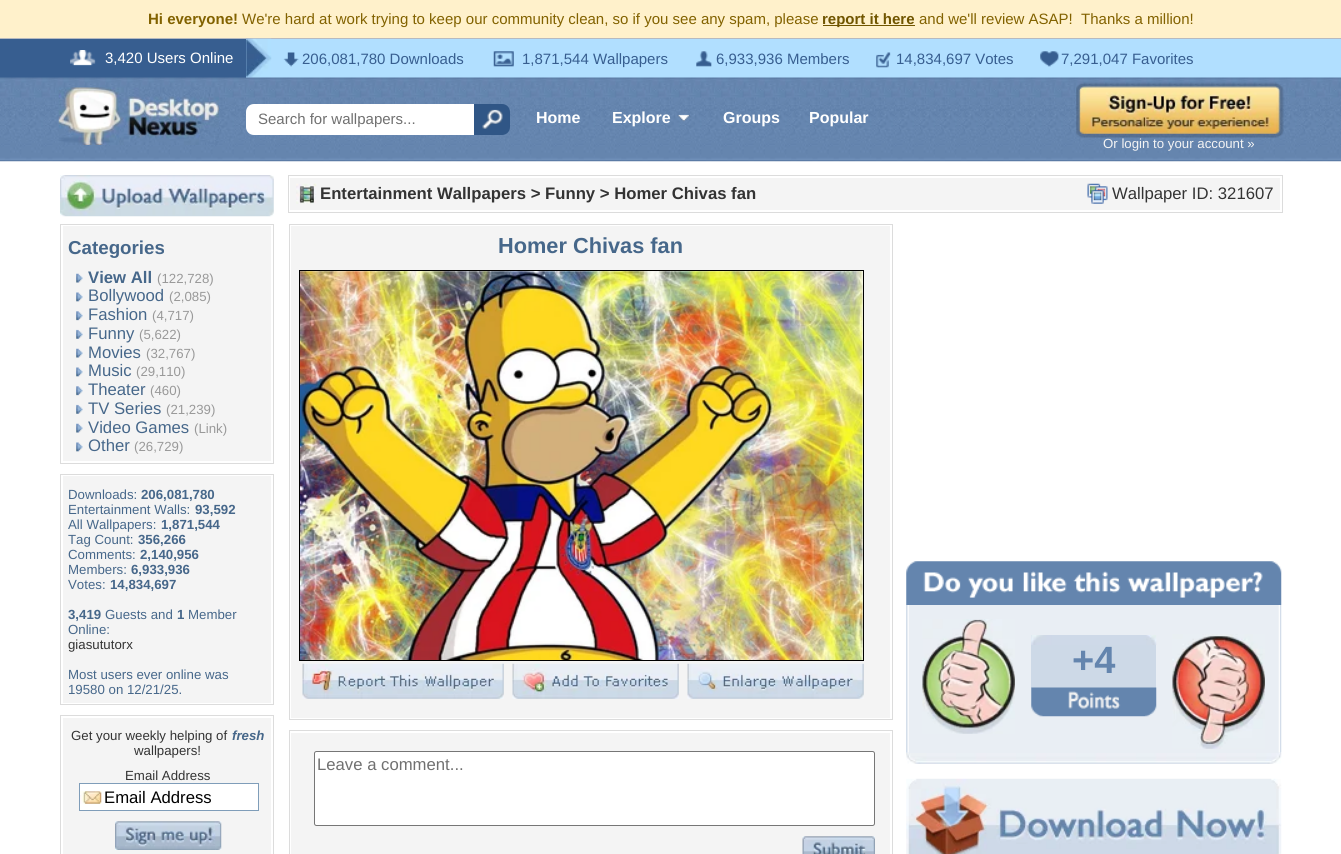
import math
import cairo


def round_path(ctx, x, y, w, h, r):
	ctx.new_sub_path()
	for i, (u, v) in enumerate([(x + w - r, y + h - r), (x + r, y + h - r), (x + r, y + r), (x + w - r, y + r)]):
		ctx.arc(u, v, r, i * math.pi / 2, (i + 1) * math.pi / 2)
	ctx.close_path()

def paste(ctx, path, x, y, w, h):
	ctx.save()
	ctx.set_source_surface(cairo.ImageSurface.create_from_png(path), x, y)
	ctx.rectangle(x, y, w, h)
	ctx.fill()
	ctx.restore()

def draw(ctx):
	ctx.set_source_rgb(1, 1, 1)
	ctx.paint()
	ctx.set_source_rgb(1, 0.945, 0.796)
	ctx.rectangle(0, 0, 1341, 38)
	ctx.fill()
	ctx.select_font_face('Liberation Sans', cairo.FONT_SLANT_NORMAL, cairo.FONT_WEIGHT_BOLD)
	ctx.set_font_size(15)
	ctx.set_source_rgb(0.51, 0.384, 0)
	ctx.move_to(148, 24)
	ctx.show_text('Hi everyone!')
	ctx.select_font_face('Liberation Sans')
	ctx.move_to(242, 24)
	ctx.show_text('We\'re hard at work trying to keep our community clean, so if you see any spam, please')
	ctx.set_source_rgb(0.439, 0.333, 0)
	ctx.rectangle(823, 25, 92, 1)
	ctx.fill()
	ctx.select_font_face('Liberation Sans', cairo.FONT_SLANT_NORMAL, cairo.FONT_WEIGHT_BOLD)
	ctx.move_to(822, 24)
	ctx.show_text('report it here')
	ctx.select_font_face('Liberation Sans')
	ctx.set_source_rgb(0.51, 0.384, 0)
	ctx.move_to(919, 24)
	ctx.show_text('and we\'ll review ASAP!  Thanks a million!')
	ctx.set_source_rgb(0.694, 0.875, 1)
	ctx.rectangle(246, 39, 1095, 39)
	ctx.fill()
	ctx.set_source_rgb(0.714, 0.729, 0.753)
	ctx.rectangle(0, 38, 1341, 1)
	ctx.fill()
	ctx.set_source_rgb(0.216, 0.369, 0.565)
	ctx.rectangle(0, 39, 246, 39)
	ctx.fill()
	paste(ctx, 'media/1.png', 70, 50, 26, 16)
	ctx.set_source_rgb(1, 1, 1)
	ctx.move_to(105, 63)
	ctx.show_text('3,420 Users Online')
	paste(ctx, 'media/2.png', 246, 38, 26, 40)
	paste(ctx, 'media/3.png', 283, 52, 16, 15)
	ctx.set_source_rgb(0.216, 0.369, 0.565)
	ctx.move_to(302, 64)
	ctx.show_text('206,081,780 Downloads')
	paste(ctx, 'media/4.png', 493, 51, 21, 16)
	ctx.move_to(522, 64)
	ctx.show_text('1,871,544 Wallpapers')
	paste(ctx, 'media/5.png', 696, 51, 16, 16)
	ctx.move_to(716, 64)
	ctx.show_text('6,933,936 Members')
	paste(ctx, 'media/6.png', 876, 52, 15, 16)
	ctx.move_to(896, 64)
	ctx.show_text('14,834,697 Votes')
	paste(ctx, 'media/7.png', 1040, 51, 19, 16)
	ctx.move_to(1061, 64)
	ctx.show_text('7,291,047 Favorites')
	paste(ctx, 'media/8.png', 0, 77, 1341, 85)
	paste(ctx, 'media/9.png', 58, 87, 161, 58)
	ctx.set_source_rgb(1, 1, 1)
	ctx.new_path()
	ctx.move_to(254, 104)
	ctx.line_to(494, 104)
	ctx.line_to(494, 135)
	ctx.line_to(254, 135)
	ctx.curve_to(249.5, 135, 246, 131.5, 246, 127)
	ctx.line_to(246, 112)
	ctx.curve_to(246, 107.5, 249.5, 104, 254, 104)
	ctx.close_path()
	ctx.fill()
	ctx.set_source_rgb(0.439, 0.439, 0.439)
	ctx.move_to(258, 124)
	ctx.show_text('Search for wallpapers...')
	ctx.set_source_rgb(0.188, 0.337, 0.525)
	ctx.new_path()
	ctx.move_to(474, 104)
	ctx.line_to(502, 104)
	ctx.curve_to(506.5, 104, 510, 107.5, 510, 112)
	ctx.line_to(510, 127)
	ctx.curve_to(510, 131.5, 506.5, 135, 502, 135)
	ctx.line_to(474, 135)
	ctx.close_path()
	ctx.fill()
	paste(ctx, 'media/10.png', 482, 109, 21, 20)
	ctx.select_font_face('Liberation Sans', cairo.FONT_SLANT_NORMAL, cairo.FONT_WEIGHT_BOLD)
	ctx.set_font_size(16)
	ctx.set_source_rgb(1, 1, 1)
	ctx.move_to(536, 123)
	ctx.show_text('Home')
	ctx.move_to(612, 123)
	ctx.show_text('Explore')
	paste(ctx, 'media/11.png', 677, 114, 13, 8)
	ctx.move_to(723, 123)
	ctx.show_text('Groups')
	ctx.move_to(809, 123)
	ctx.show_text('Popular')
	paste(ctx, 'media/12.png', 1076, 82, 208, 56)
	ctx.select_font_face('Liberation Sans')
	ctx.set_font_size(13.25)
	ctx.set_source_rgb(0.957, 0.957, 0.957)
	ctx.move_to(1103, 148)
	ctx.show_text('Or login to your account »')
	paste(ctx, 'media/13.png', 60, 175, 214, 42)
	ctx.rectangle(60.5, 224.5, 213, 239)
	ctx.set_source_rgb(0.863, 0.863, 0.863)
	ctx.set_line_width(1)
	ctx.stroke()
	ctx.set_source_rgb(0.957, 0.957, 0.957)
	ctx.rectangle(63, 226, 208, 235)
	ctx.fill()
	ctx.select_font_face('Liberation Sans', cairo.FONT_SLANT_NORMAL, cairo.FONT_WEIGHT_BOLD)
	ctx.set_font_size(18.75)
	ctx.set_source_rgb(0.275, 0.404, 0.541)
	ctx.move_to(68, 254)
	ctx.show_text('Categories')
	paste(ctx, 'media/14.png', 76, 273, 7, 10)
	ctx.set_font_size(16.7)
	ctx.move_to(88, 283)
	ctx.show_text('View All')
	ctx.select_font_face('Liberation Sans')
	ctx.set_font_size(13.25)
	ctx.set_source_rgb(0.6, 0.6, 0.6)
	ctx.move_to(157, 283)
	ctx.show_text('(122,728)')
	paste(ctx, 'media/15.png', 76, 292, 7, 10)
	ctx.set_font_size(16.7)
	ctx.set_source_rgb(0.275, 0.404, 0.541)
	ctx.move_to(88, 301)
	ctx.show_text('Bollywood')
	ctx.set_font_size(13.25)
	ctx.set_source_rgb(0.6, 0.6, 0.6)
	ctx.move_to(169, 301)
	ctx.show_text('(2,085)')
	paste(ctx, 'media/16.png', 76, 311, 7, 10)
	ctx.set_font_size(16.7)
	ctx.set_source_rgb(0.275, 0.404, 0.541)
	ctx.move_to(88, 320)
	ctx.show_text('Fashion')
	ctx.set_font_size(13.25)
	ctx.set_source_rgb(0.6, 0.6, 0.6)
	ctx.move_to(152, 320)
	ctx.show_text('(4,717)')
	paste(ctx, 'media/17.png', 76, 329, 7, 10)
	ctx.set_font_size(16.7)
	ctx.set_source_rgb(0.275, 0.404, 0.541)
	ctx.move_to(88, 339)
	ctx.show_text('Funny')
	ctx.set_font_size(13.25)
	ctx.set_source_rgb(0.6, 0.6, 0.6)
	ctx.move_to(139, 339)
	ctx.show_text('(5,622)')
	paste(ctx, 'media/14.png', 76, 348, 7, 10)
	ctx.set_font_size(16.7)
	ctx.set_source_rgb(0.275, 0.404, 0.541)
	ctx.move_to(88, 358)
	ctx.show_text('Movies')
	ctx.set_font_size(13.25)
	ctx.set_source_rgb(0.6, 0.6, 0.6)
	ctx.move_to(146, 358)
	ctx.show_text('(32,767)')
	paste(ctx, 'media/18.png', 76, 367, 7, 10)
	ctx.set_font_size(16.7)
	ctx.set_source_rgb(0.275, 0.404, 0.541)
	ctx.move_to(88, 376)
	ctx.show_text('Music')
	ctx.set_font_size(13.25)
	ctx.set_source_rgb(0.6, 0.6, 0.6)
	ctx.move_to(136, 376)
	ctx.show_text('(29,110)')
	paste(ctx, 'media/16.png', 76, 386, 7, 10)
	ctx.set_font_size(16.7)
	ctx.set_source_rgb(0.275, 0.404, 0.541)
	ctx.move_to(88, 395)
	ctx.show_text('Theater')
	ctx.set_font_size(13.25)
	ctx.set_source_rgb(0.6, 0.6, 0.6)
	ctx.move_to(150, 395)
	ctx.show_text('(460)')
	paste(ctx, 'media/17.png', 76, 404, 7, 10)
	ctx.set_font_size(16.7)
	ctx.set_source_rgb(0.275, 0.404, 0.541)
	ctx.move_to(88, 414)
	ctx.show_text('TV Series')
	ctx.set_font_size(13.25)
	ctx.set_source_rgb(0.6, 0.6, 0.6)
	ctx.move_to(166, 414)
	ctx.show_text('(21,239)')
	paste(ctx, 'media/14.png', 76, 423, 7, 10)
	ctx.set_font_size(16.7)
	ctx.set_source_rgb(0.275, 0.404, 0.541)
	ctx.move_to(88, 433)
	ctx.show_text('Video Games')
	ctx.set_font_size(13.25)
	ctx.set_source_rgb(0.6, 0.6, 0.6)
	ctx.move_to(194, 433)
	ctx.show_text('(Link)')
	paste(ctx, 'media/18.png', 76, 442, 7, 10)
	ctx.set_font_size(16.7)
	ctx.set_source_rgb(0.275, 0.404, 0.541)
	ctx.move_to(88, 451)
	ctx.show_text('Other')
	ctx.set_font_size(13.25)
	ctx.set_source_rgb(0.6, 0.6, 0.6)
	ctx.move_to(134, 451)
	ctx.show_text('(26,729)')
	ctx.rectangle(60.5, 474.5, 213, 230)
	ctx.set_source_rgb(0.863, 0.863, 0.863)
	ctx.stroke()
	ctx.set_source_rgb(0.957, 0.957, 0.957)
	ctx.rectangle(63, 476, 208, 227)
	ctx.fill()
	ctx.set_source_rgb(0.275, 0.404, 0.541)
	ctx.move_to(68, 499)
	ctx.show_text('Downloads:')
	ctx.select_font_face('Liberation Sans', cairo.FONT_SLANT_NORMAL, cairo.FONT_WEIGHT_BOLD)
	ctx.move_to(141, 499)
	ctx.show_text('206,081,780')
	ctx.select_font_face('Liberation Sans')
	ctx.move_to(68, 514)
	ctx.show_text('Entertainment Walls:')
	ctx.select_font_face('Liberation Sans', cairo.FONT_SLANT_NORMAL, cairo.FONT_WEIGHT_BOLD)
	ctx.move_to(195, 514)
	ctx.show_text('93,592')
	ctx.select_font_face('Liberation Sans')
	ctx.move_to(68, 529)
	ctx.show_text('All Wallpapers:')
	ctx.select_font_face('Liberation Sans', cairo.FONT_SLANT_NORMAL, cairo.FONT_WEIGHT_BOLD)
	ctx.move_to(161, 529)
	ctx.show_text('1,871,544')
	ctx.select_font_face('Liberation Sans')
	ctx.move_to(68, 544)
	ctx.show_text('Tag Count:')
	ctx.select_font_face('Liberation Sans', cairo.FONT_SLANT_NORMAL, cairo.FONT_WEIGHT_BOLD)
	ctx.move_to(138, 544)
	ctx.show_text('356,266')
	ctx.select_font_face('Liberation Sans')
	ctx.move_to(68, 559)
	ctx.show_text('Comments:')
	ctx.select_font_face('Liberation Sans', cairo.FONT_SLANT_NORMAL, cairo.FONT_WEIGHT_BOLD)
	ctx.move_to(140, 559)
	ctx.show_text('2,140,956')
	ctx.select_font_face('Liberation Sans')
	ctx.move_to(68, 574)
	ctx.show_text('Members:')
	ctx.select_font_face('Liberation Sans', cairo.FONT_SLANT_NORMAL, cairo.FONT_WEIGHT_BOLD)
	ctx.move_to(131, 574)
	ctx.show_text('6,933,936')
	ctx.select_font_face('Liberation Sans')
	ctx.move_to(68, 589)
	ctx.show_text('Votes:')
	ctx.select_font_face('Liberation Sans', cairo.FONT_SLANT_NORMAL, cairo.FONT_WEIGHT_BOLD)
	ctx.move_to(110, 589)
	ctx.show_text('14,834,697')
	ctx.move_to(68, 619)
	ctx.show_text('3,419')
	ctx.select_font_face('Liberation Sans')
	ctx.move_to(105, 619)
	ctx.show_text('Guests and')
	ctx.select_font_face('Liberation Sans', cairo.FONT_SLANT_NORMAL, cairo.FONT_WEIGHT_BOLD)
	ctx.move_to(177, 619)
	ctx.show_text('1')
	ctx.select_font_face('Liberation Sans')
	ctx.move_to(188, 619)
	ctx.show_text('Member')
	ctx.move_to(68, 634)
	ctx.show_text('Online:')
	ctx.set_source_rgb(0.2, 0.2, 0.2)
	ctx.move_to(68, 649)
	ctx.show_text('giasututorx')
	ctx.set_source_rgb(0.275, 0.404, 0.541)
	ctx.move_to(68, 679)
	ctx.show_text('Most users ever online was')
	ctx.move_to(68, 694)
	ctx.show_text('19580 on 12/21/25.')
	ctx.rectangle(60.5, 715.5, 213, 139)
	ctx.set_source_rgb(0.863, 0.863, 0.863)
	ctx.stroke()
	ctx.set_source_rgb(0.957, 0.957, 0.957)
	ctx.rectangle(63, 718, 208, 136)
	ctx.fill()
	ctx.set_source_rgb(0.2, 0.2, 0.2)
	ctx.move_to(71, 740)
	ctx.show_text('Get your weekly helping of')
	ctx.select_font_face('Liberation Sans', cairo.FONT_SLANT_ITALIC, cairo.FONT_WEIGHT_BOLD)
	ctx.set_source_rgb(0.275, 0.404, 0.541)
	ctx.move_to(232, 740)
	ctx.show_text('fresh')
	ctx.select_font_face('Liberation Sans')
	ctx.set_source_rgb(0.2, 0.2, 0.2)
	ctx.move_to(134, 755)
	ctx.show_text('wallpapers!')
	ctx.move_to(125, 780)
	ctx.show_text('Email Address')
	ctx.set_source_rgb(1, 1, 1)
	ctx.rectangle(80, 784, 178, 26)
	ctx.fill()
	paste(ctx, 'media/19.png', 80, 791, 22, 13)
	ctx.rectangle(79.5, 783.5, 179, 27)
	ctx.set_source_rgb(0.498, 0.616, 0.725)
	ctx.stroke()
	ctx.set_font_size(16.7)
	ctx.set_source_rgb(0, 0, 0)
	ctx.move_to(104, 803)
	ctx.show_text('Email Address')
	paste(ctx, 'media/20.png', 115, 821, 107, 29)
	ctx.rectangle(288.5, 175.5, 994, 37)
	ctx.set_source_rgb(0.863, 0.863, 0.863)
	ctx.stroke()
	ctx.set_source_rgb(0.957, 0.957, 0.957)
	ctx.rectangle(290, 178, 990, 32)
	ctx.fill()
	paste(ctx, 'media/21.png', 296, 183, 21, 21)
	ctx.select_font_face('Liberation Sans', cairo.FONT_SLANT_NORMAL, cairo.FONT_WEIGHT_BOLD)
	ctx.set_source_rgb(0.2, 0.2, 0.2)
	ctx.move_to(320, 199)
	ctx.show_text('Entertainment Wallpapers > Funny > Homer Chivas fan')
	paste(ctx, 'media/22.png', 1087, 183, 21, 21)
	ctx.select_font_face('Liberation Sans')
	ctx.move_to(1112, 199)
	ctx.show_text('Wallpaper ID: 321607')
	ctx.rectangle(289.5, 224.5, 603, 495)
	ctx.set_source_rgb(0.863, 0.863, 0.863)
	ctx.stroke()
	ctx.set_source_rgb(0.957, 0.957, 0.957)
	ctx.rectangle(291, 226, 599, 492)
	ctx.fill()
	ctx.select_font_face('Liberation Sans', cairo.FONT_SLANT_NORMAL, cairo.FONT_WEIGHT_BOLD)
	ctx.set_font_size(21.75)
	ctx.set_source_rgb(0.275, 0.404, 0.541)
	ctx.move_to(498, 253)
	ctx.show_text('Homer Chivas fan')
	ctx.rectangle(299.5, 270.5, 564, 390)
	ctx.set_source_rgb(0, 0, 0)
	ctx.stroke()
	paste(ctx, 'media/23.png', 300, 271, 563, 389)
	paste(ctx, 'media/24.png', 302, 663, 202, 36)
	paste(ctx, 'media/25.png', 512, 663, 167, 36)
	paste(ctx, 'media/26.png', 687, 663, 177, 36)
	ctx.rectangle(289.5, 730.5, 603, 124)
	ctx.set_source_rgb(0.863, 0.863, 0.863)
	ctx.stroke()
	ctx.set_source_rgb(0.957, 0.957, 0.957)
	ctx.rectangle(291, 733, 599, 121)
	ctx.fill()
	ctx.set_source_rgb(1, 1, 1)
	round_path(ctx, 314.5, 751.5, 560, 74, 2)
	ctx.fill_preserve()
	ctx.set_source_rgb(0.463, 0.463, 0.463)
	ctx.stroke()
	ctx.select_font_face('Liberation Sans')
	ctx.set_font_size(16.7)
	ctx.set_source_rgb(0.439, 0.439, 0.439)
	ctx.move_to(317, 770)
	ctx.show_text('Leave a comment...')
	paste(ctx, 'media/27.png', 802, 836, 73, 18)
	paste(ctx, 'media/28.png', 906, 561, 376, 44)
	ctx.set_source_rgb(0.914, 0.933, 0.957)
	ctx.rectangle(906, 605, 375, 148)
	ctx.fill()
	paste(ctx, 'media/29.png', 906, 605, 376, 148)
	paste(ctx, 'media/30.png', 922, 619, 93, 115)
	ctx.set_source_rgb(0.804, 0.851, 0.906)
	ctx.rectangle(1031, 635, 125, 53)
	ctx.fill()
	paste(ctx, 'media/31.png', 1031, 635, 126, 10)
	ctx.select_font_face('Liberation Sans', cairo.FONT_SLANT_NORMAL, cairo.FONT_WEIGHT_BOLD)
	ctx.set_font_size(38)
	ctx.set_source_rgb(0.392, 0.522, 0.682)
	ctx.move_to(1072, 673)
	ctx.show_text('+4')
	paste(ctx, 'media/32.png', 1031, 687, 126, 30)
	paste(ctx, 'media/33.png', 1172, 634, 93, 115)
	paste(ctx, 'media/34.png', 906, 753, 376, 11)
	paste(ctx, 'media/35.png', 906, 778, 376, 76)


surface = cairo.ImageSurface(cairo.FORMAT_RGB24, 1341, 854)
ctx = cairo.Context(surface)
options = cairo.FontOptions()
options.set_hint_metrics(cairo.HINT_METRICS_OFF)
options.set_hint_style(cairo.HINT_STYLE_NONE)
ctx.set_font_options(options)
ctx.set_miter_limit(4)
draw(ctx)
surface.write_to_png('image.png')
